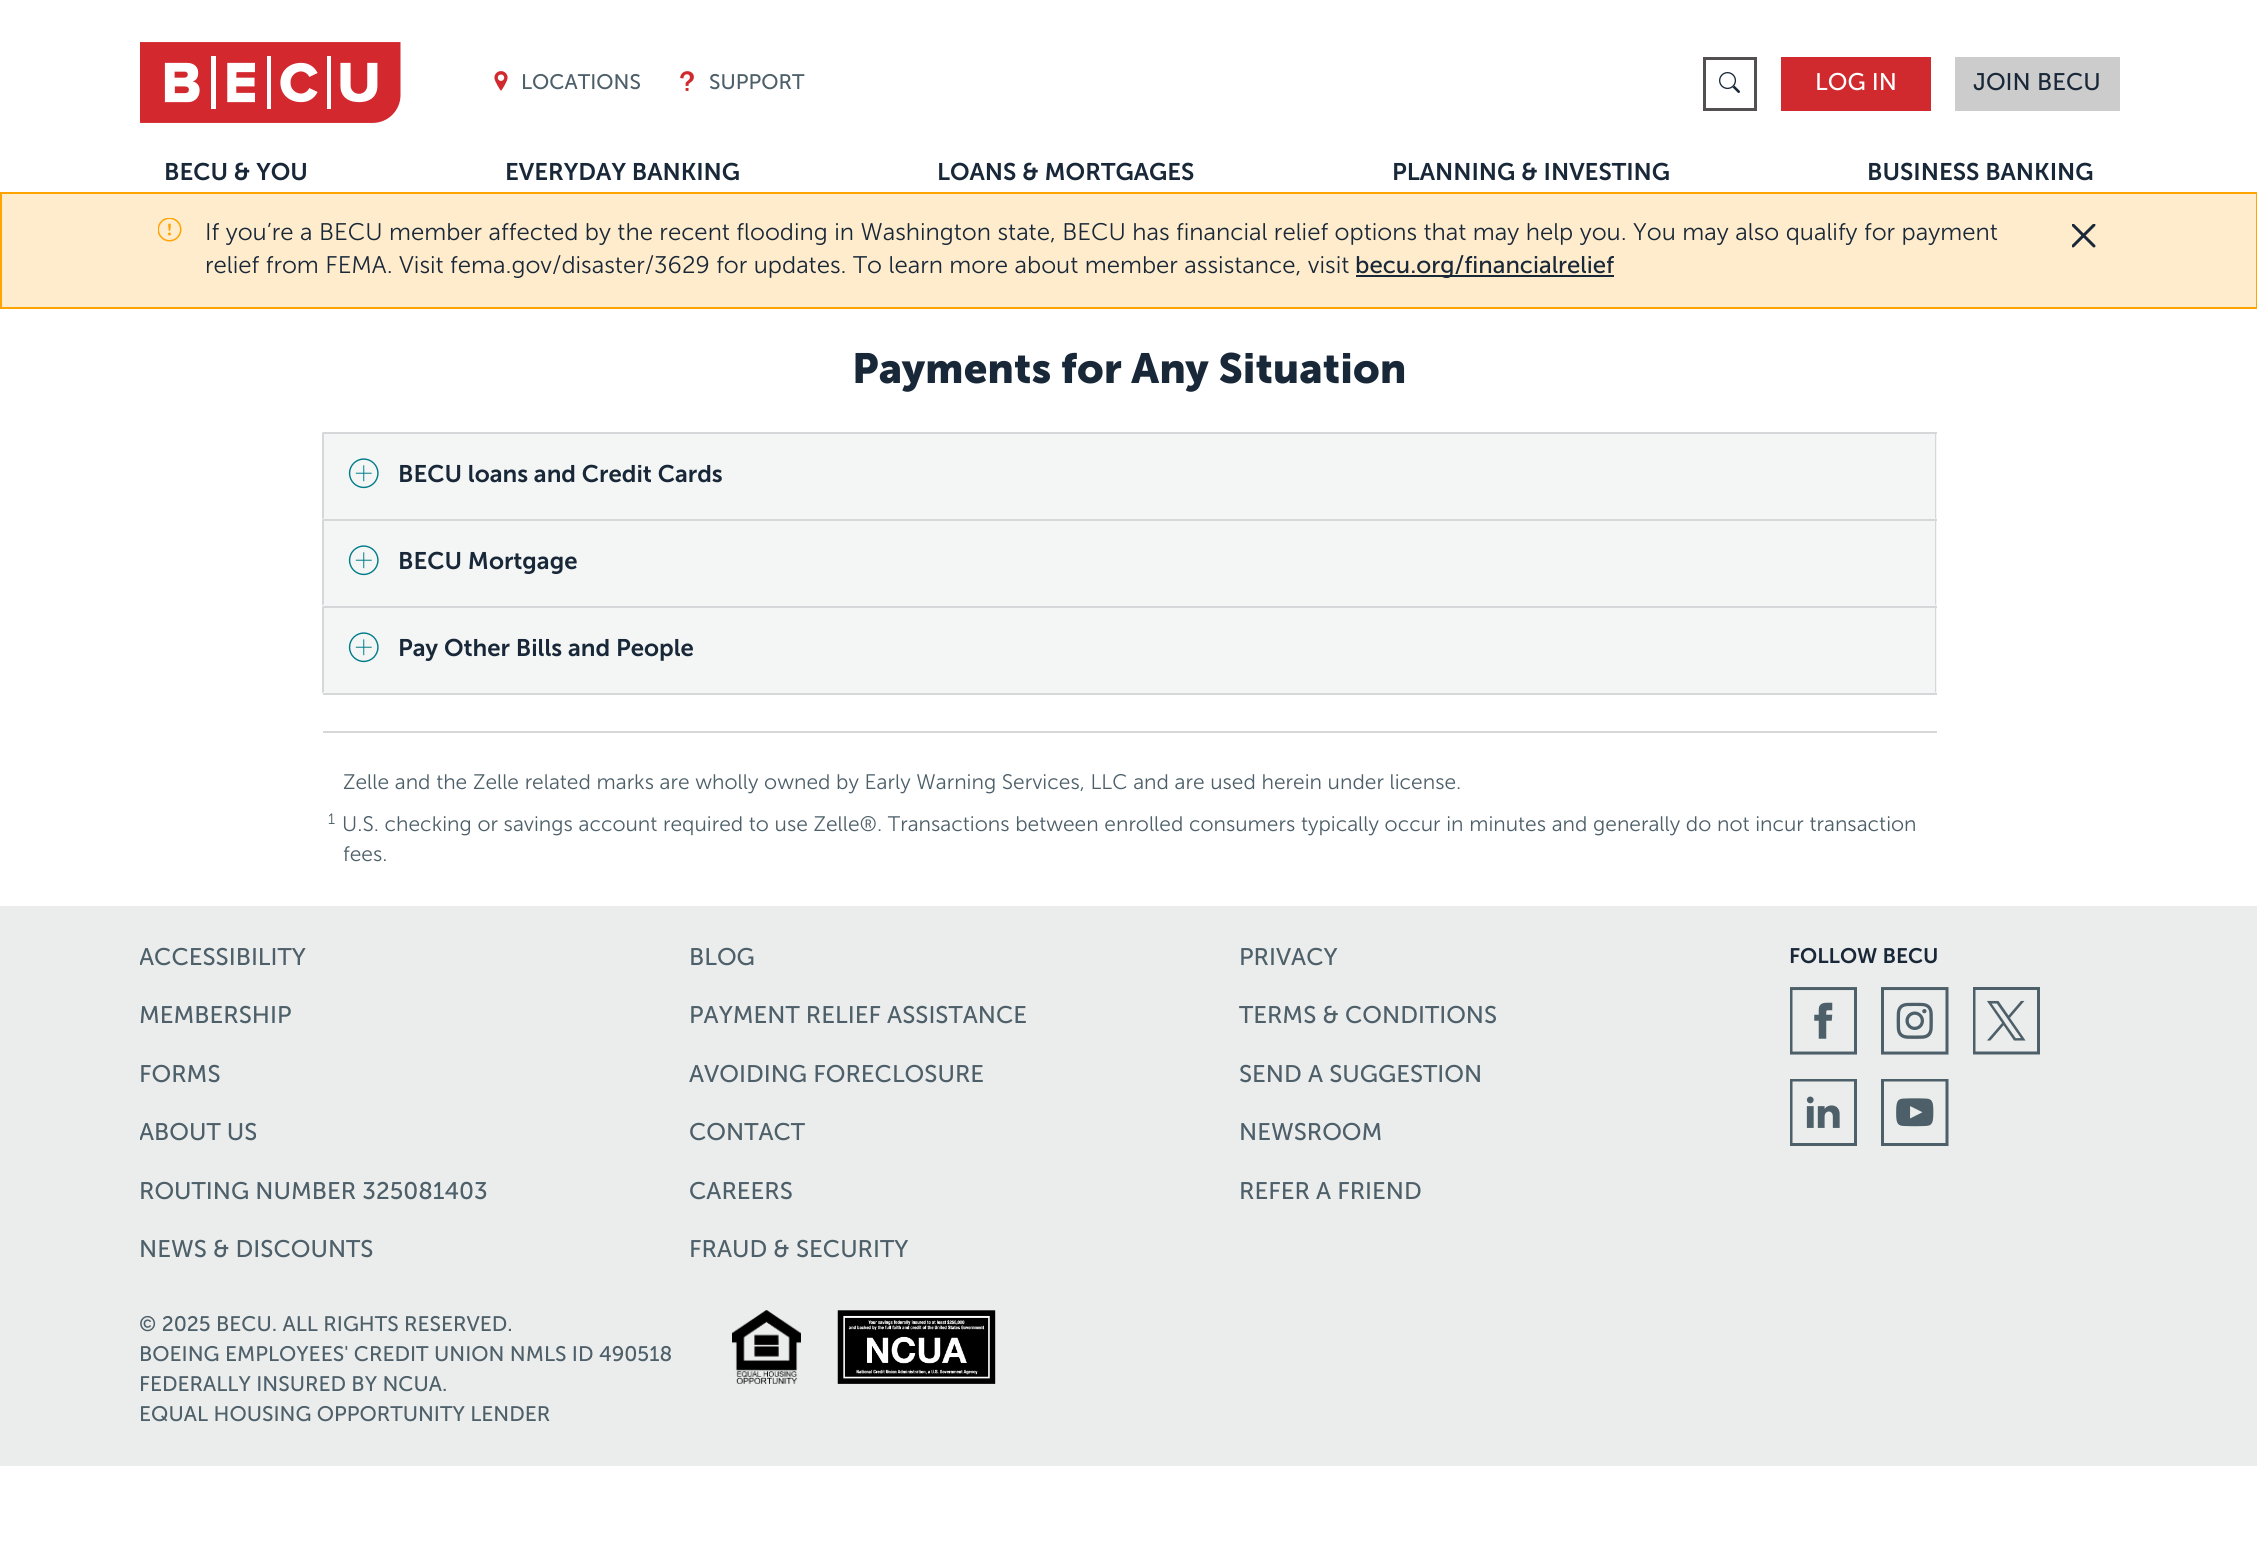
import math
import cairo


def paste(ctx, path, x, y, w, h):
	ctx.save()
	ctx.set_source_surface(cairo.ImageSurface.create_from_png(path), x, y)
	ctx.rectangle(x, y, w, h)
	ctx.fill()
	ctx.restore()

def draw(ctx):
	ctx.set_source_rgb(1, 1, 1)
	ctx.paint()
	paste(ctx, 'media/1.png', 140, 42, 261, 81)
	paste(ctx, 'media/2.png', 494, 71, 14, 20)
	ctx.select_font_face('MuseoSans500')
	ctx.set_font_size(21)
	ctx.set_source_rgb(0.302, 0.373, 0.412)
	ctx.move_to(521, 89)
	ctx.show_text('LOCATIONS')
	paste(ctx, 'media/3.png', 680, 71, 14, 20)
	ctx.move_to(709, 89)
	ctx.show_text('SUPPORT')
	ctx.rectangle(1704.5, 58.5, 51, 51)
	ctx.set_source_rgb(0.322, 0.314, 0.314)
	ctx.set_line_width(3)
	ctx.stroke()
	paste(ctx, 'media/4.png', 1719, 72, 21, 21)
	ctx.set_source_rgb(0.82, 0.165, 0.18)
	ctx.rectangle(1781, 57, 150, 54)
	ctx.fill()
	ctx.set_font_size(24)
	ctx.set_source_rgb(1, 1, 1)
	ctx.move_to(1815, 90)
	ctx.show_text('LOG IN')
	ctx.set_source_rgb(0.8, 0.8, 0.8)
	ctx.rectangle(1955, 57, 165, 54)
	ctx.fill()
	ctx.set_source_rgb(0.098, 0.157, 0.22)
	ctx.move_to(1973, 90)
	ctx.show_text('JOIN BECU')
	ctx.select_font_face('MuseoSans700')
	for x, y, s in [
		(164, 180, 'BECU & YOU'),
		(505, 180, 'EVERYDAY BANKING'),
		(937, 180, 'LOANS & MORTGAGES'),
		(1392, 180, 'PLANNING & INVESTING'),
		(1867, 180, 'BUSINESS BANKING'),
	]:
		ctx.move_to(x, y)
		ctx.show_text(s)
	ctx.set_source_rgb(1, 0.925, 0.8)
	ctx.rectangle(1, 193, 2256, 115)
	ctx.fill_preserve()
	ctx.set_source_rgb(1, 0.639, 0)
	ctx.set_line_width(2)
	ctx.stroke()
	paste(ctx, 'media/5.png', 158, 218, 24, 24)
	ctx.select_font_face('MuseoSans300')
	ctx.set_source_rgb(0.098, 0.157, 0.22)
	ctx.move_to(205, 240)
	ctx.show_text('If you’re a BECU member affected by the recent flooding in Washington state, BECU has financial relief options that may help you. You may also qualify for payment')
	ctx.move_to(205, 273)
	ctx.show_text('relief from FEMA. Visit fema.gov/disaster/3629 for updates. To learn more about member assistance, visit')
	ctx.rectangle(1356, 275, 258, 2)
	ctx.fill()
	ctx.select_font_face('MuseoSans500')
	ctx.move_to(1355, 273)
	ctx.show_text('becu.org/financialrelief')
	paste(ctx, 'media/6.png', 2072, 224, 24, 24)
	ctx.select_font_face('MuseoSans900')
	ctx.set_font_size(42)
	ctx.move_to(852, 383)
	ctx.show_text('Payments for Any Situation')
	ctx.set_source_rgb(0.835, 0.843, 0.851)
	ctx.rectangle(323, 693, 1614, 2)
	ctx.fill()
	ctx.set_source_rgb(0.957, 0.961, 0.961)
	ctx.rectangle(323, 434, 1614, 85)
	ctx.fill()
	ctx.set_source_rgb(0.835, 0.843, 0.851)
	ctx.rectangle(323, 432, 1614, 2)
	ctx.fill()
	ctx.new_path()
	ctx.move_to(1936, 432)
	ctx.line_to(1936, 519)
	ctx.line_to(1935, 518)
	ctx.line_to(1935, 434)
	ctx.close_path()
	ctx.fill()
	ctx.new_path()
	ctx.move_to(322, 519)
	ctx.line_to(322, 432)
	ctx.line_to(324, 434)
	ctx.line_to(324, 518)
	ctx.close_path()
	ctx.fill()
	paste(ctx, 'media/7.png', 348, 458, 31, 31)
	ctx.select_font_face('MuseoSans700')
	ctx.set_font_size(24)
	ctx.set_source_rgb(0.098, 0.157, 0.22)
	ctx.move_to(398, 482)
	ctx.show_text('BECU loans and Credit Cards')
	ctx.set_source_rgb(0.957, 0.961, 0.961)
	ctx.rectangle(323, 521, 1614, 85)
	ctx.fill()
	ctx.set_source_rgb(0.835, 0.843, 0.851)
	ctx.rectangle(323, 519, 1614, 2)
	ctx.fill()
	ctx.new_path()
	ctx.move_to(1936, 519)
	ctx.line_to(1936, 606)
	ctx.line_to(1935, 604)
	ctx.line_to(1935, 520)
	ctx.close_path()
	ctx.fill()
	ctx.new_path()
	ctx.move_to(322, 606)
	ctx.line_to(322, 519)
	ctx.line_to(324, 520)
	ctx.line_to(324, 604)
	ctx.close_path()
	ctx.fill()
	paste(ctx, 'media/7.png', 348, 545, 31, 31)
	ctx.set_source_rgb(0.098, 0.157, 0.22)
	ctx.move_to(398, 569)
	ctx.show_text('BECU Mortgage')
	ctx.set_source_rgb(0.957, 0.961, 0.961)
	ctx.rectangle(323, 608, 1614, 85)
	ctx.fill()
	ctx.set_source_rgb(0.835, 0.843, 0.851)
	ctx.rectangle(323, 606, 1614, 2)
	ctx.fill()
	ctx.new_path()
	ctx.move_to(1936, 606)
	ctx.line_to(1936, 693)
	ctx.line_to(1935, 692)
	ctx.line_to(1935, 608)
	ctx.close_path()
	ctx.fill()
	ctx.new_path()
	ctx.move_to(322, 693)
	ctx.line_to(322, 606)
	ctx.line_to(324, 608)
	ctx.line_to(324, 692)
	ctx.close_path()
	ctx.fill()
	paste(ctx, 'media/7.png', 348, 632, 31, 31)
	ctx.set_source_rgb(0.098, 0.157, 0.22)
	ctx.move_to(398, 656)
	ctx.show_text('Pay Other Bills and People')
	ctx.set_source_rgb(0.835, 0.843, 0.851)
	ctx.rectangle(323, 731, 1614, 2)
	ctx.fill()
	ctx.select_font_face('MuseoSans300')
	ctx.set_font_size(21)
	ctx.set_source_rgb(0.302, 0.373, 0.412)
	ctx.move_to(343, 789)
	ctx.show_text('Zelle and the Zelle related marks are wholly owned by Early Warning Services, LLC and are used herein under license.')
	ctx.set_font_size(15)
	ctx.move_to(328, 824)
	ctx.show_text('1')
	ctx.set_font_size(21)
	ctx.move_to(342, 831)
	ctx.show_text('U.S. checking or savings account required to use Zelle®. Transactions between enrolled consumers typically occur in minutes and generally do not incur transaction')
	ctx.move_to(343, 861)
	ctx.show_text('fees.')
	ctx.set_source_rgb(0.918, 0.922, 0.925)
	ctx.rectangle(0, 906, 2257, 560)
	ctx.fill()
	ctx.save()
	ctx.rectangle(140, 942, 1614, 332)
	ctx.clip()
	ctx.select_font_face('MuseoSans500')
	ctx.set_font_size(24)
	ctx.set_source_rgb(0.302, 0.373, 0.412)
	ctx.move_to(139, 965)
	ctx.show_text('ACCESSIBILITY')
	ctx.restore()
	ctx.select_font_face('MuseoSans500')
	ctx.set_font_size(24)
	ctx.set_source_rgb(0.302, 0.373, 0.412)
	for x, y, s in [
		(689, 965, 'BLOG'),
		(1239, 965, 'PRIVACY'),
		(139, 1023, 'MEMBERSHIP'),
		(689, 1023, 'PAYMENT RELIEF ASSISTANCE'),
		(1239, 1023, 'TERMS & CONDITIONS'),
		(139, 1082, 'FORMS'),
		(689, 1082, 'AVOIDING FORECLOSURE'),
		(1239, 1082, 'SEND A SUGGESTION'),
	]:
		ctx.move_to(x, y)
		ctx.show_text(s)
	ctx.save()
	ctx.rectangle(140, 942, 1614, 332)
	ctx.clip()
	ctx.move_to(139, 1140)
	ctx.show_text('ABOUT US')
	ctx.restore()
	for x, y, s in [
		(689, 1140, 'CONTACT'),
		(1239, 1140, 'NEWSROOM'),
		(139, 1199, 'ROUTING NUMBER 325081403'),
		(689, 1199, 'CAREERS'),
		(1239, 1199, 'REFER A FRIEND'),
		(139, 1257, 'NEWS & DISCOUNTS'),
		(689, 1257, 'FRAUD & SECURITY'),
	]:
		ctx.move_to(x, y)
		ctx.show_text(s)
	ctx.select_font_face('MuseoSans700')
	ctx.set_font_size(21)
	ctx.set_source_rgb(0.098, 0.157, 0.22)
	ctx.move_to(1789, 963)
	ctx.show_text('FOLLOW BECU')
	paste(ctx, 'media/8.png', 1790, 987, 67, 68)
	paste(ctx, 'media/9.png', 1881, 987, 68, 68)
	paste(ctx, 'media/10.png', 1973, 987, 67, 68)
	paste(ctx, 'media/11.png', 1790, 1079, 67, 67)
	paste(ctx, 'media/12.png', 1881, 1079, 68, 67)
	ctx.select_font_face('MuseoSans500')
	ctx.set_source_rgb(0.302, 0.373, 0.412)
	for x, y, s in [
		(139, 1331, '© 2025 BECU. ALL RIGHTS RESERVED.'),
		(139, 1361, 'BOEING EMPLOYEES\' CREDIT UNION NMLS ID 490518'),
		(139, 1391, 'FEDERALLY INSURED BY NCUA.'),
		(139, 1421, 'EQUAL HOUSING OPPORTUNITY LENDER'),
	]:
		ctx.move_to(x, y)
		ctx.show_text(s)
	paste(ctx, 'media/13.png', 732, 1310, 69, 74)
	paste(ctx, 'media/14.png', 837, 1310, 159, 74)


surface = cairo.ImageSurface(cairo.FORMAT_RGB24, 2257, 1568)
ctx = cairo.Context(surface)
options = cairo.FontOptions()
options.set_hint_metrics(cairo.HINT_METRICS_OFF)
options.set_hint_style(cairo.HINT_STYLE_NONE)
ctx.set_font_options(options)
ctx.set_miter_limit(4)
draw(ctx)
surface.write_to_png('image.png')
